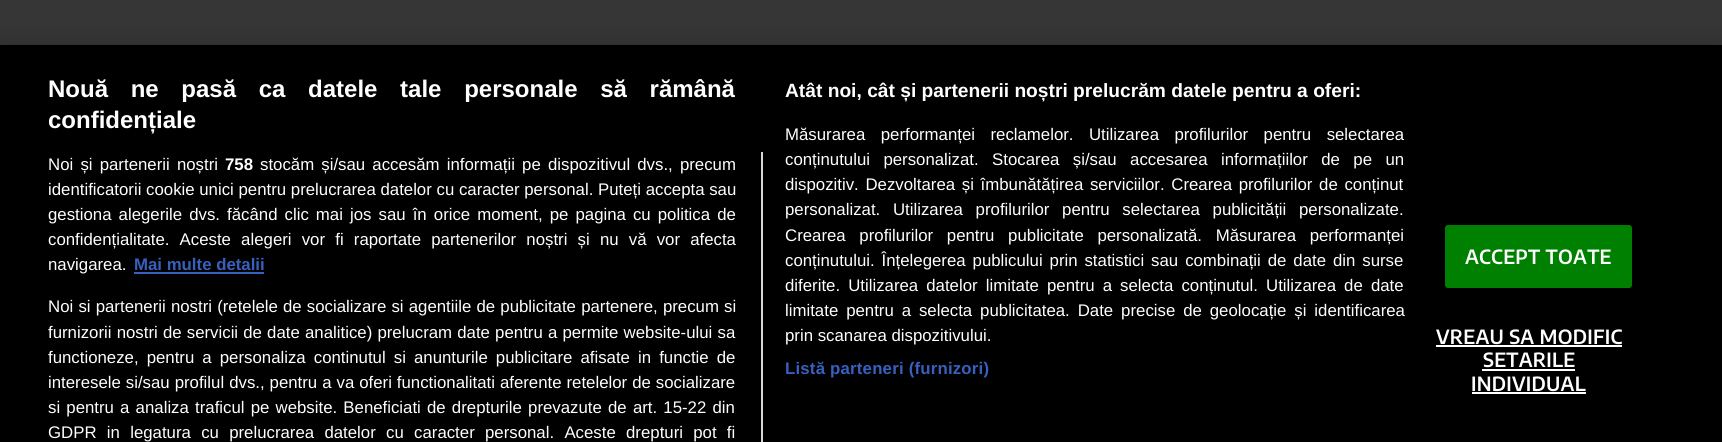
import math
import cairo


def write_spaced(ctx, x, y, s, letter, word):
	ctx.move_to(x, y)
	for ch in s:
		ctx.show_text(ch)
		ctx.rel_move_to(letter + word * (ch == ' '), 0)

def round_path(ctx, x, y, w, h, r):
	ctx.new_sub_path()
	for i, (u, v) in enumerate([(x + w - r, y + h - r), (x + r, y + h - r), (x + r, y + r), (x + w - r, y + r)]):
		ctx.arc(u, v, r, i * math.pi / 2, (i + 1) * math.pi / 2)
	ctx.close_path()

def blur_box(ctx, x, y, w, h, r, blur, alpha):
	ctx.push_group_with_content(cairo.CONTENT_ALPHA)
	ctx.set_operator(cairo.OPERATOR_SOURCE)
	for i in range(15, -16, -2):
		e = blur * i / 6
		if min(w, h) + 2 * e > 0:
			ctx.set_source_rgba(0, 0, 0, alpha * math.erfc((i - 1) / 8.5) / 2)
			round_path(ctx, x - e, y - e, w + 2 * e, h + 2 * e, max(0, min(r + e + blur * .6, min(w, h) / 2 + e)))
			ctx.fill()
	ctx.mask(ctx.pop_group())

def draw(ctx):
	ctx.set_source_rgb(0.212, 0.212, 0.212)
	ctx.paint()
	ctx.set_source_rgb(0, 0, 0)
	blur_box(ctx, 0, 45, 1722, 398, 0, 13.5, 0.2)
	ctx.set_source_rgb(0, 0, 0)
	ctx.rectangle(0, 45, 1722, 397)
	ctx.fill()
	ctx.select_font_face('Liberation Sans', cairo.FONT_SLANT_NORMAL, cairo.FONT_WEIGHT_BOLD)
	ctx.set_font_size(24)
	ctx.set_source_rgb(1, 1, 1)
	write_spaced(ctx, 48, 97, 'Nouă ne pasă ca datele tale personale să rămână', 0, 16)
	ctx.move_to(48, 128)
	ctx.show_text('confidențiale')
	ctx.set_font_size(19.2)
	ctx.move_to(785, 97)
	ctx.show_text('Atât noi, cât și partenerii noștri prelucrăm datele pentru a oferi:')
	ctx.select_font_face('Liberation Sans')
	ctx.set_font_size(16.8)
	write_spaced(ctx, 785, 140, 'Măsurarea performanței reclamelor. Utilizarea profilurilor pentru selectarea', 0, 10.75)
	write_spaced(ctx, 785, 165, 'conținutului personalizat. Stocarea și/sau accesarea informațiilor de pe un', 0, 8.75)
	write_spaced(ctx, 785, 190, 'dispozitiv. Dezvoltarea și îmbunătățirea serviciilor. Crearea profilurilor de conținut', 0, 2)
	write_spaced(ctx, 785, 215, 'personalizat. Utilizarea profilurilor pentru selectarea publicității personalizate.', 0, 8)
	write_spaced(ctx, 785, 241, 'Crearea profilurilor pentru publicitate personalizată. Măsurarea performanței', 0, 9)
	write_spaced(ctx, 785, 266, 'conținutului. Înțelegerea publicului prin statistici sau combinații de date din surse', 0, 2.25)
	write_spaced(ctx, 785, 291, 'diferite. Utilizarea datelor limitate pentru a selecta conținutul. Utilizarea de date', 0, 3.4)
	write_spaced(ctx, 785, 316, 'limitate pentru a selecta publicitatea. Date precise de geolocație și identificarea', 0, 3.25)
	ctx.move_to(785, 341)
	ctx.show_text('prin scanarea dispozitivului.')
	ctx.select_font_face('Liberation Sans', cairo.FONT_SLANT_NORMAL, cairo.FONT_WEIGHT_BOLD)
	ctx.set_source_rgb(0.22, 0.376, 0.745)
	write_spaced(ctx, 785, 374, 'Listă parteneri (furnizori)', 0.2, 0)
	ctx.set_source_rgb(0.847, 0.847, 0.847)
	ctx.rectangle(761, 152, 2, 290)
	ctx.fill()
	ctx.select_font_face('Liberation Sans')
	ctx.set_source_rgb(1, 1, 1)
	write_spaced(ctx, 48, 170, 'Noi și partenerii noștri', 0, 2.5)
	ctx.select_font_face('Liberation Sans', cairo.FONT_SLANT_NORMAL, cairo.FONT_WEIGHT_BOLD)
	ctx.move_to(225, 170)
	ctx.show_text('758')
	ctx.select_font_face('Liberation Sans')
	write_spaced(ctx, 260, 170, 'stocăm și/sau accesăm informații pe dispozitivul dvs., precum', 0, 2.5)
	ctx.move_to(48, 195)
	ctx.show_text('identificatorii cookie unici pentru prelucrarea datelor cu caracter personal. Puteți accepta sau')
	write_spaced(ctx, 48, 220, 'gestiona alegerile dvs. făcând clic mai jos sau în orice moment, pe pagina cu politica de', 0, 2.4)
	write_spaced(ctx, 48, 245, 'confidențialitate. Aceste alegeri vor fi raportate partenerilor noștri și nu vă vor afecta', 0, 5.5)
	ctx.move_to(48, 270)
	ctx.show_text('navigarea.')
	ctx.select_font_face('Liberation Sans', cairo.FONT_SLANT_NORMAL, cairo.FONT_WEIGHT_BOLD)
	ctx.set_source_rgb(0.22, 0.376, 0.745)
	ctx.move_to(134, 270)
	ctx.show_text('Mai multe detalii')
	ctx.rectangle(134, 272, 130, 2)
	ctx.fill()
	ctx.select_font_face('Liberation Sans')
	ctx.set_source_rgb(1, 1, 1)
	write_spaced(ctx, 48, 312, 'Noi si partenerii nostri (retelele de socializare si agentiile de publicitate partenere, precum si', 0, 0.5)
	write_spaced(ctx, 48, 338, 'furnizorii nostri de servicii de date analitice) prelucram date pentru a permite website-ului sa', 0, 0.5)
	write_spaced(ctx, 48, 363, 'functioneze, pentru a personaliza continutul si anunturile publicitare afisate in functie de', 0, 3.4)
	write_spaced(ctx, 48, 388, 'interesele si/sau profilul dvs., pentru a va oferi functionalitati aferente retelelor de socializare', 0, 0.3)
	write_spaced(ctx, 48, 413, 'si pentru a analiza traficul pe website. Beneficiati de drepturile prevazute de art. 15-22 din', 0, 1.5)
	write_spaced(ctx, 48, 438, 'GDPR in legatura cu prelucrarea datelor cu caracter personal. Aceste drepturi pot fi', 0, 5.6)
	ctx.set_source_rgb(0, 0.502, 0)
	round_path(ctx, 1446, 226, 185, 61, 2)
	ctx.fill_preserve()
	ctx.stroke()
	ctx.select_font_face('Encode Sans Condensed SemiBold')
	ctx.set_font_size(19.5)
	ctx.set_source_rgb(1, 1, 1)
	write_spaced(ctx, 1465, 264, 'ACCEPT TOATE', 0.25, 0)
	write_spaced(ctx, 1436, 344, 'VREAU SA MODIFIC', 0.25, 0)
	ctx.rectangle(1436, 345, 186, 2)
	ctx.fill()
	write_spaced(ctx, 1483, 367, 'SETARILE', 0.25, 0)
	ctx.rectangle(1482, 369, 93, 2)
	ctx.fill()
	write_spaced(ctx, 1471, 391, 'INDIVIDUAL', 0.25, 0)
	ctx.rectangle(1472, 392, 114, 2)
	ctx.fill()


surface = cairo.ImageSurface(cairo.FORMAT_RGB24, 1722, 442)
ctx = cairo.Context(surface)
options = cairo.FontOptions()
options.set_hint_metrics(cairo.HINT_METRICS_OFF)
options.set_hint_style(cairo.HINT_STYLE_NONE)
ctx.set_font_options(options)
ctx.set_miter_limit(4)
draw(ctx)
surface.write_to_png('image.png')
